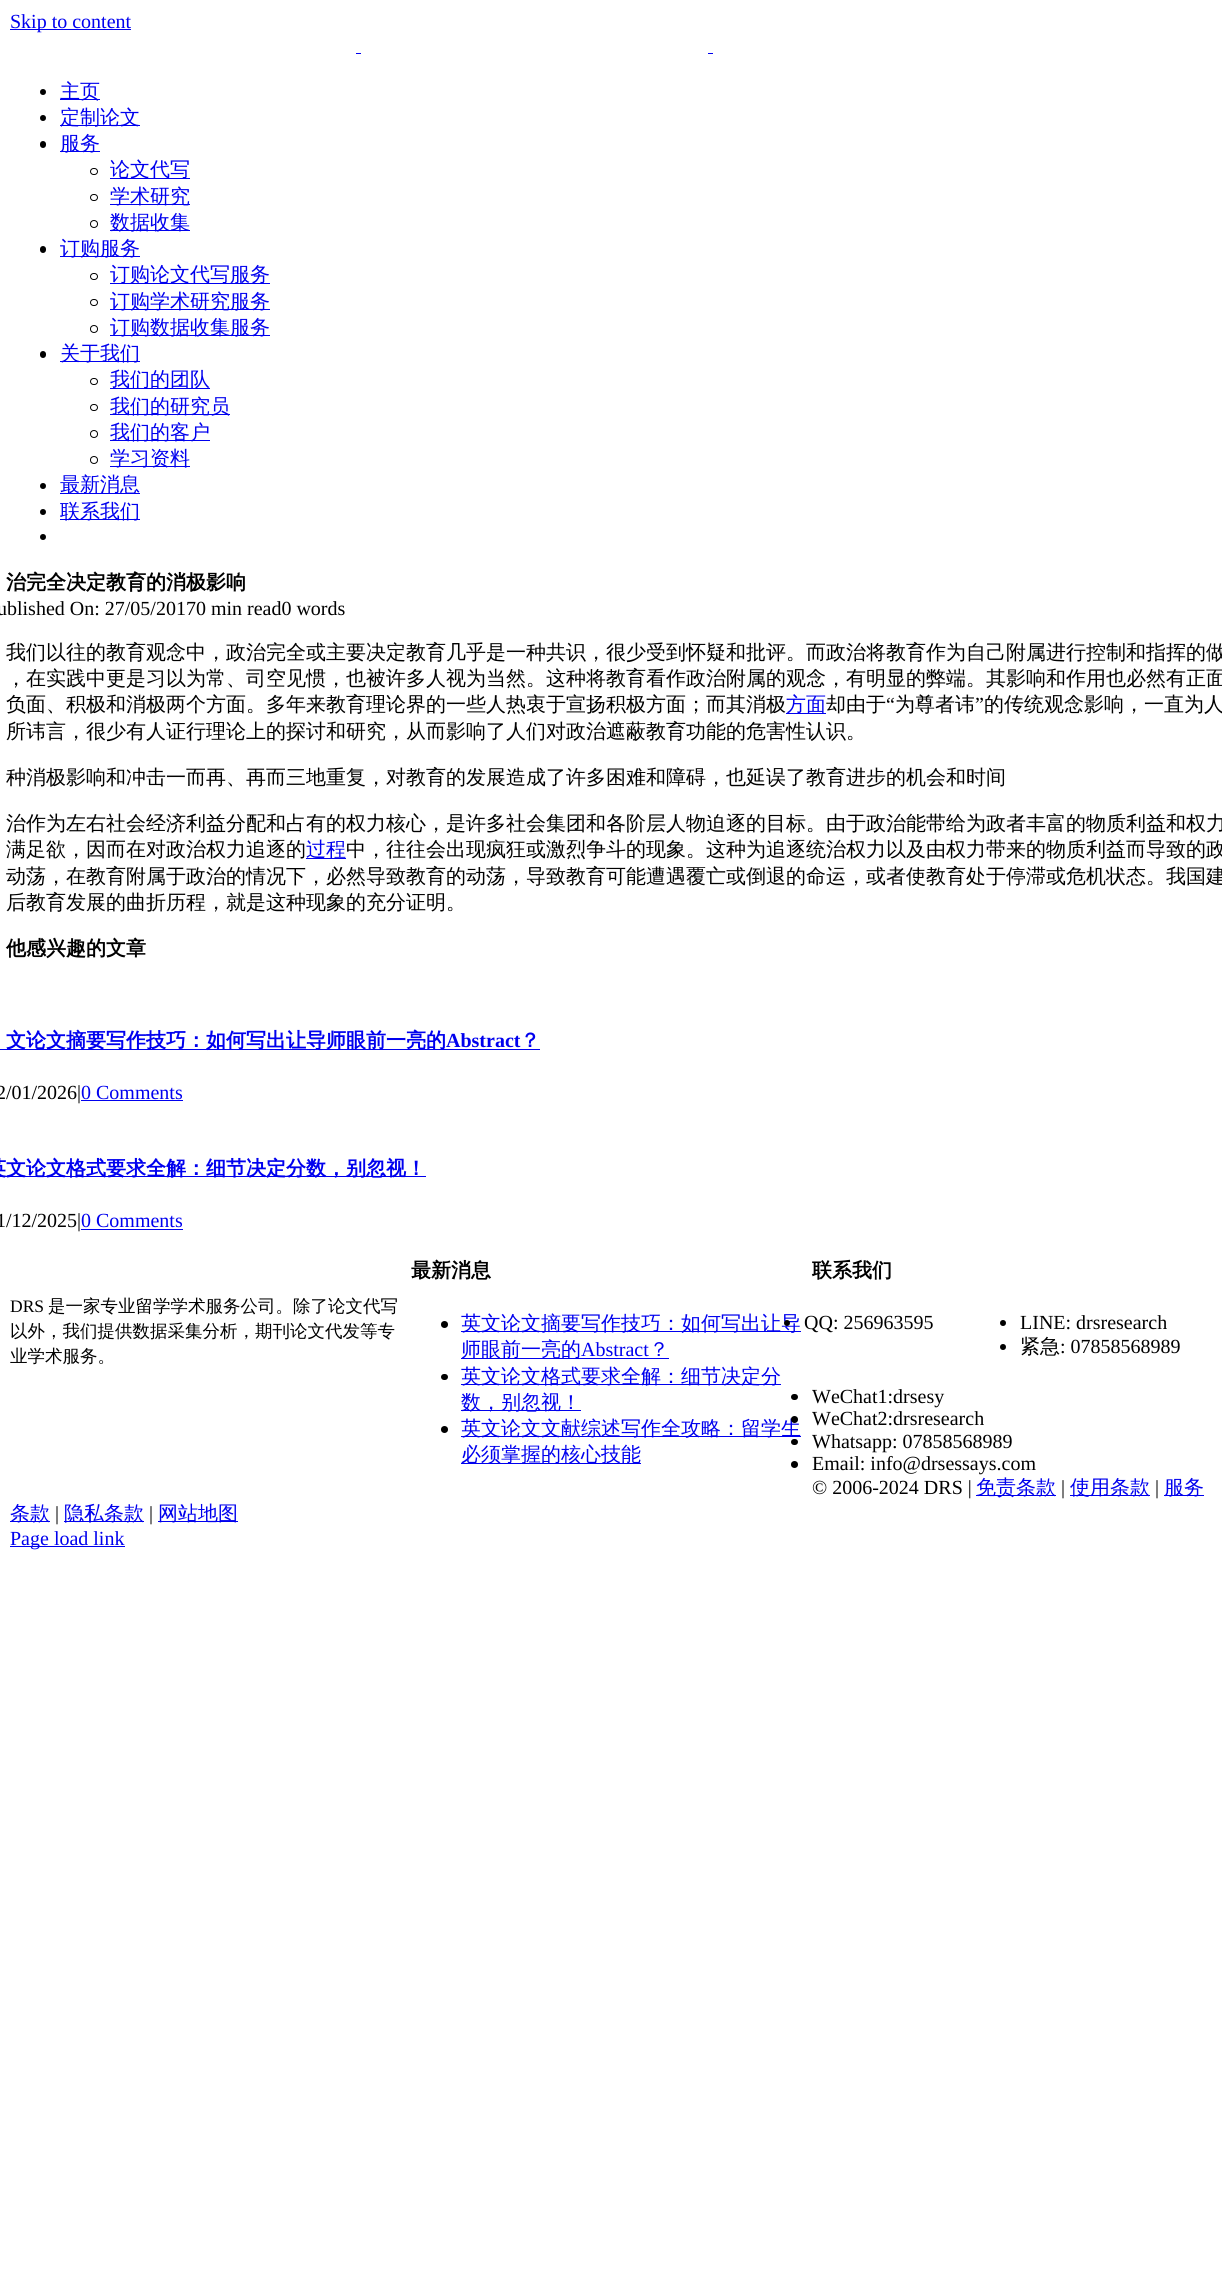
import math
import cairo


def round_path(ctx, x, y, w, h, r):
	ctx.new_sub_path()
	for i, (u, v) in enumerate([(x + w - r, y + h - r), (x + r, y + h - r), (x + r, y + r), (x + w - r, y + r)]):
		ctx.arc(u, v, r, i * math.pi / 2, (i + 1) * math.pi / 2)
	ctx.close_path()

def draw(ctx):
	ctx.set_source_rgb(1, 1, 1)
	ctx.paint()
	ctx.set_source_rgb(0, 0, 0.933)
	ctx.rectangle(10, 29, 121, 1)
	ctx.fill()
	ctx.select_font_face('Liberation Serif')
	ctx.set_font_size(20)
	ctx.move_to(10, 28)
	ctx.show_text('Skip to content')
	ctx.rectangle(356, 53, 5, 1)
	ctx.fill()
	ctx.rectangle(708, 53, 5, 1)
	ctx.fill()
	ctx.set_source_rgb(0, 0, 0)
	ctx.arc(43, 92, 3, 0, 2 * math.pi)
	ctx.fill()
	ctx.set_source_rgb(0, 0, 0.933)
	ctx.rectangle(60, 99, 40, 1)
	ctx.fill()
	ctx.select_font_face('WenQuanYi Zen Hei Medium')
	ctx.move_to(60, 98)
	ctx.show_text('主页')
	ctx.set_source_rgb(0, 0, 0)
	ctx.new_path()
	ctx.arc(43, 118, 3, 0, 2 * math.pi)
	ctx.fill()
	ctx.set_source_rgb(0, 0, 0.933)
	ctx.rectangle(60, 125, 80, 1)
	ctx.fill()
	ctx.move_to(60, 124)
	ctx.show_text('定制论文')
	ctx.set_source_rgb(0, 0, 0)
	round_path(ctx, 40, 141, 6, 7, 3)
	ctx.fill()
	ctx.set_source_rgb(0, 0, 0.933)
	ctx.rectangle(60, 151, 40, 1)
	ctx.fill()
	ctx.move_to(60, 150)
	ctx.show_text('服务')
	round_path(ctx, 90.5, 168.5, 7, 6, 3)
	ctx.set_source_rgb(0, 0, 0)
	ctx.set_line_width(1)
	ctx.stroke()
	ctx.set_source_rgb(0, 0, 0.933)
	ctx.rectangle(110, 178, 80, 1)
	ctx.fill()
	ctx.move_to(110, 176)
	ctx.show_text('论文代写')
	round_path(ctx, 90.5, 194.5, 7, 6, 3)
	ctx.set_source_rgb(0, 0, 0)
	ctx.stroke()
	ctx.set_source_rgb(0, 0, 0.933)
	ctx.rectangle(110, 204, 80, 1)
	ctx.fill()
	ctx.move_to(110, 203)
	ctx.show_text('学术研究')
	ctx.new_path()
	ctx.arc(94, 224, 3.5, 0, 2 * math.pi)
	ctx.set_source_rgb(0, 0, 0)
	ctx.stroke()
	ctx.set_source_rgb(0, 0, 0.933)
	ctx.rectangle(110, 230, 80, 1)
	ctx.fill()
	ctx.move_to(110, 229)
	ctx.show_text('数据收集')
	ctx.set_source_rgb(0, 0, 0)
	round_path(ctx, 40, 246, 6, 7, 3)
	ctx.fill()
	ctx.set_source_rgb(0, 0, 0.933)
	ctx.rectangle(60, 256, 80, 1)
	ctx.fill()
	ctx.move_to(60, 255)
	ctx.show_text('订购服务')
	round_path(ctx, 90.5, 273.5, 7, 6, 3)
	ctx.set_source_rgb(0, 0, 0)
	ctx.stroke()
	ctx.set_source_rgb(0, 0, 0.933)
	ctx.rectangle(110, 283, 160, 1)
	ctx.fill()
	ctx.move_to(110, 281)
	ctx.show_text('订购论文代写服务')
	round_path(ctx, 90.5, 299.5, 7, 6, 3)
	ctx.set_source_rgb(0, 0, 0)
	ctx.stroke()
	ctx.set_source_rgb(0, 0, 0.933)
	ctx.rectangle(110, 309, 160, 1)
	ctx.fill()
	ctx.move_to(110, 308)
	ctx.show_text('订购学术研究服务')
	ctx.new_path()
	ctx.arc(94, 329, 3.5, 0, 2 * math.pi)
	ctx.set_source_rgb(0, 0, 0)
	ctx.stroke()
	ctx.set_source_rgb(0, 0, 0.933)
	ctx.rectangle(110, 335, 160, 1)
	ctx.fill()
	ctx.move_to(110, 334)
	ctx.show_text('订购数据收集服务')
	ctx.set_source_rgb(0, 0, 0)
	round_path(ctx, 40, 351, 6, 7, 3)
	ctx.fill()
	ctx.set_source_rgb(0, 0, 0.933)
	ctx.rectangle(60, 361, 80, 1)
	ctx.fill()
	ctx.move_to(60, 360)
	ctx.show_text('关于我们')
	round_path(ctx, 90.5, 378.5, 7, 6, 3)
	ctx.set_source_rgb(0, 0, 0)
	ctx.stroke()
	ctx.set_source_rgb(0, 0, 0.933)
	ctx.rectangle(110, 388, 100, 1)
	ctx.fill()
	ctx.move_to(110, 386)
	ctx.show_text('我们的团队')
	round_path(ctx, 90.5, 404.5, 7, 6, 3)
	ctx.set_source_rgb(0, 0, 0)
	ctx.stroke()
	ctx.set_source_rgb(0, 0, 0.933)
	ctx.rectangle(110, 414, 120, 1)
	ctx.fill()
	ctx.move_to(110, 413)
	ctx.show_text('我们的研究员')
	ctx.new_path()
	ctx.arc(94, 434, 3.5, 0, 2 * math.pi)
	ctx.set_source_rgb(0, 0, 0)
	ctx.stroke()
	ctx.set_source_rgb(0, 0, 0.933)
	ctx.rectangle(110, 440, 100, 1)
	ctx.fill()
	ctx.move_to(110, 439)
	ctx.show_text('我们的客户')
	ctx.new_path()
	ctx.arc(94, 460, 3.5, 0, 2 * math.pi)
	ctx.set_source_rgb(0, 0, 0)
	ctx.stroke()
	ctx.set_source_rgb(0, 0, 0.933)
	ctx.rectangle(110, 466, 80, 1)
	ctx.fill()
	ctx.move_to(110, 465)
	ctx.show_text('学习资料')
	ctx.set_source_rgb(0, 0, 0)
	ctx.new_path()
	ctx.arc(43, 486, 3, 0, 2 * math.pi)
	ctx.fill()
	ctx.set_source_rgb(0, 0, 0.933)
	ctx.rectangle(60, 493, 80, 1)
	ctx.fill()
	ctx.move_to(60, 491)
	ctx.show_text('最新消息')
	ctx.set_source_rgb(0, 0, 0)
	ctx.new_path()
	ctx.arc(43, 512, 3, 0, 2 * math.pi)
	ctx.fill()
	ctx.set_source_rgb(0, 0, 0.933)
	ctx.rectangle(60, 519, 80, 1)
	ctx.fill()
	ctx.move_to(60, 518)
	ctx.show_text('联系我们')
	ctx.set_source_rgb(0, 0, 0)
	ctx.new_path()
	ctx.arc(43, 537, 3, 0, 2 * math.pi)
	ctx.fill()
	ctx.select_font_face('WenQuanYi Zen Hei', cairo.FONT_SLANT_NORMAL, cairo.FONT_WEIGHT_BOLD)
	ctx.move_to(6, 589)
	ctx.show_text('治完全决定教育的消极影响')
	ctx.select_font_face('Liberation Serif')
	ctx.move_to(-3, 615)
	ctx.show_text('ublished On: 27/05/20170 min read0 words')
	ctx.select_font_face('WenQuanYi Zen Hei Medium')
	for x, y, s in [
		(6, 659, '我们以往的教育观念中，政治完全或主要决定教育几乎是一种共识，很少受到怀疑和批评。而政治将教育作为自己附属进行控制和指挥的做'),
		(6, 685, '，在实践中更是习以为常、司空见惯，也被许多人视为当然。这种将教育看作政治附属的观念，有明显的弊端。其影响和作用也必然有正面'),
		(6, 711, '负面、积极和消极两个方面。多年来教育理论界的一些人热衷于宣扬积极方面；而其消极'),
	]:
		ctx.move_to(x, y)
		ctx.show_text(s)
	ctx.set_source_rgb(0, 0, 0.933)
	ctx.rectangle(786, 713, 40, 1)
	ctx.fill()
	ctx.move_to(786, 711)
	ctx.show_text('方面')
	ctx.set_source_rgb(0, 0, 0)
	ctx.move_to(826, 711)
	ctx.show_text('却由于')
	ctx.select_font_face('Liberation Serif')
	ctx.move_to(886, 711)
	ctx.show_text('“')
	ctx.select_font_face('WenQuanYi Zen Hei Medium')
	ctx.move_to(895, 711)
	ctx.show_text('为尊者讳')
	ctx.select_font_face('Liberation Serif')
	ctx.move_to(975, 711)
	ctx.show_text('”')
	ctx.select_font_face('WenQuanYi Zen Hei Medium')
	for x, y, s in [
		(984, 711, '的传统观念影响，一直为人'),
		(6, 738, '所讳言，很少有人证行理论上的探讨和研究，从而影响了人们对政治遮蔽教育功能的危害性认识。'),
		(6, 784, '种消极影响和冲击一而再、再而三地重复，对教育的发展造成了许多困难和障碍，也延误了教育进步的机会和时间'),
		(6, 830, '治作为左右社会经济利益分配和占有的权力核心，是许多社会集团和各阶层人物迫逐的目标。由于政治能带给为政者丰富的物质利益和权力'),
		(6, 856, '满足欲，因而在对政治权力追逐的'),
	]:
		ctx.move_to(x, y)
		ctx.show_text(s)
	ctx.set_source_rgb(0, 0, 0.933)
	ctx.rectangle(306, 858, 40, 1)
	ctx.fill()
	ctx.move_to(306, 856)
	ctx.show_text('过程')
	ctx.set_source_rgb(0, 0, 0)
	for x, y, s in [
		(346, 856, '中，往往会出现疯狂或激烈争斗的现象。这种为追逐统治权力以及由权力带来的物质利益而导致的政'),
		(6, 883, '动荡，在教育附属于政治的情况下，必然导致教育的动荡，导致教育可能遭遇覆亡或倒退的命运，或者使教育处于停滞或危机状态。我国建'),
		(6, 909, '后教育发展的曲折历程，就是这种现象的充分证明。'),
	]:
		ctx.move_to(x, y)
		ctx.show_text(s)
	ctx.select_font_face('WenQuanYi Zen Hei', cairo.FONT_SLANT_NORMAL, cairo.FONT_WEIGHT_BOLD)
	ctx.move_to(6, 955)
	ctx.show_text('他感兴趣的文章')
	ctx.set_source_rgb(0, 0, 0.933)
	ctx.rectangle(0, 1049, 540, 1)
	ctx.fill()
	ctx.move_to(6, 1047)
	ctx.show_text('文论文摘要写作技巧：如何写出让导师眼前一亮的')
	ctx.select_font_face('Liberation Serif', cairo.FONT_SLANT_NORMAL, cairo.FONT_WEIGHT_BOLD)
	ctx.move_to(446, 1047)
	ctx.show_text('Abstract')
	ctx.select_font_face('WenQuanYi Zen Hei', cairo.FONT_SLANT_NORMAL, cairo.FONT_WEIGHT_BOLD)
	ctx.move_to(520, 1047)
	ctx.show_text('？')
	ctx.select_font_face('Liberation Serif')
	ctx.set_source_rgb(0, 0, 0)
	ctx.move_to(-4, 1099)
	ctx.show_text('2/01/2026|')
	ctx.set_source_rgb(0, 0, 0.933)
	ctx.move_to(81, 1099)
	ctx.show_text('0 Comments')
	ctx.rectangle(81, 1100, 102, 1)
	ctx.fill()
	ctx.rectangle(0, 1176, 426, 1)
	ctx.fill()
	ctx.select_font_face('WenQuanYi Zen Hei', cairo.FONT_SLANT_NORMAL, cairo.FONT_WEIGHT_BOLD)
	ctx.move_to(-14, 1175)
	ctx.show_text('英文论文格式要求全解：细节决定分数，别忽视！')
	ctx.select_font_face('Liberation Serif')
	ctx.set_source_rgb(0, 0, 0)
	ctx.move_to(-4, 1227)
	ctx.show_text('1/12/2025|')
	ctx.set_source_rgb(0, 0, 0.933)
	ctx.move_to(81, 1227)
	ctx.show_text('0 Comments')
	ctx.rectangle(81, 1229, 102, 1)
	ctx.fill()
	ctx.set_font_size(17.5)
	ctx.set_source_rgb(0, 0, 0)
	ctx.move_to(10, 1312)
	ctx.show_text('DRS')
	ctx.select_font_face('WenQuanYi Zen Hei Medium')
	for x, y, s in [
		(48, 1312, '是一家专业留学学术服务公司。除了论文代写'),
		(10, 1337, '以外，我们提供数据采集分析，期刊论文代发等专'),
		(10, 1362, '业学术服务。'),
	]:
		ctx.move_to(x, y)
		ctx.show_text(s)
	ctx.select_font_face('WenQuanYi Zen Hei', cairo.FONT_SLANT_NORMAL, cairo.FONT_WEIGHT_BOLD)
	ctx.set_font_size(20)
	ctx.move_to(411, 1277)
	ctx.show_text('最新消息')
	ctx.new_path()
	ctx.arc(444.5, 1324.5, 3.5, 0, 2 * math.pi)
	ctx.fill()
	ctx.set_source_rgb(0, 0, 0.933)
	ctx.rectangle(461, 1331, 340, 1)
	ctx.fill()
	ctx.select_font_face('WenQuanYi Zen Hei Medium')
	ctx.move_to(461, 1330)
	ctx.show_text('英文论文摘要写作技巧：如何写出让导')
	ctx.rectangle(461, 1358, 208, 1)
	ctx.fill()
	ctx.move_to(461, 1356)
	ctx.show_text('师眼前一亮的')
	ctx.select_font_face('Liberation Serif')
	ctx.move_to(581, 1356)
	ctx.show_text('Abstract')
	ctx.select_font_face('WenQuanYi Zen Hei Medium')
	ctx.move_to(649, 1356)
	ctx.show_text('？')
	ctx.set_source_rgb(0, 0, 0)
	round_path(ctx, 441, 1374, 7, 6, 3)
	ctx.fill()
	ctx.set_source_rgb(0, 0, 0.933)
	ctx.rectangle(461, 1384, 320, 1)
	ctx.fill()
	ctx.move_to(461, 1383)
	ctx.show_text('英文论文格式要求全解：细节决定分')
	ctx.rectangle(461, 1410, 120, 1)
	ctx.fill()
	ctx.move_to(461, 1409)
	ctx.show_text('数，别忽视！')
	ctx.set_source_rgb(0, 0, 0)
	ctx.new_path()
	ctx.arc(444.5, 1429.5, 3.5, 0, 2 * math.pi)
	ctx.fill()
	ctx.set_source_rgb(0, 0, 0.933)
	ctx.rectangle(461, 1436, 340, 1)
	ctx.fill()
	ctx.move_to(461, 1435)
	ctx.show_text('英文论文文献综述写作全攻略：留学生')
	ctx.rectangle(461, 1463, 180, 1)
	ctx.fill()
	ctx.move_to(461, 1461)
	ctx.show_text('必须掌握的核心技能')
	ctx.select_font_face('WenQuanYi Zen Hei', cairo.FONT_SLANT_NORMAL, cairo.FONT_WEIGHT_BOLD)
	ctx.set_source_rgb(0, 0, 0)
	ctx.move_to(812, 1277)
	ctx.show_text('联系我们')
	ctx.new_path()
	ctx.arc(787, 1323, 3, 0, 2 * math.pi)
	ctx.fill()
	ctx.select_font_face('Liberation Serif')
	ctx.move_to(804, 1329)
	ctx.show_text('QQ: 256963595')
	ctx.new_path()
	ctx.arc(1003, 1323, 3, 0, 2 * math.pi)
	ctx.fill()
	ctx.move_to(1020, 1329)
	ctx.show_text('LINE: drsresearch')
	ctx.new_path()
	ctx.arc(1003, 1347, 3, 0, 2 * math.pi)
	ctx.fill()
	ctx.select_font_face('WenQuanYi Zen Hei Medium')
	ctx.move_to(1020, 1353)
	ctx.show_text('紧急')
	ctx.select_font_face('Liberation Serif')
	ctx.move_to(1060, 1353)
	ctx.show_text(': 07858568989')
	round_path(ctx, 791, 1394, 7, 6, 3)
	ctx.fill()
	ctx.move_to(812, 1403)
	ctx.show_text('WeChat1:drsesy')
	ctx.new_path()
	ctx.arc(794.5, 1419.5, 3.5, 0, 2 * math.pi)
	ctx.fill()
	ctx.move_to(812, 1425)
	ctx.show_text('WeChat2:drsresearch')
	round_path(ctx, 791, 1439, 7, 6, 3)
	ctx.fill()
	ctx.move_to(812, 1448)
	ctx.show_text('Whatsapp: 07858568989')
	ctx.new_path()
	ctx.arc(794.5, 1464.5, 3.5, 0, 2 * math.pi)
	ctx.fill()
	ctx.move_to(812, 1470)
	ctx.show_text('Email: info@drsessays.com')
	ctx.move_to(812, 1494)
	ctx.show_text('© 2006-2024 DRS |')
	ctx.set_source_rgb(0, 0, 0.933)
	ctx.rectangle(976, 1495, 80, 1)
	ctx.fill()
	ctx.select_font_face('WenQuanYi Zen Hei Medium')
	ctx.move_to(976, 1494)
	ctx.show_text('免责条款')
	ctx.select_font_face('Liberation Serif')
	ctx.set_source_rgb(0, 0, 0)
	ctx.move_to(1061, 1494)
	ctx.show_text('|')
	ctx.set_source_rgb(0, 0, 0.933)
	ctx.rectangle(1070, 1495, 80, 1)
	ctx.fill()
	ctx.select_font_face('WenQuanYi Zen Hei Medium')
	ctx.move_to(1070, 1494)
	ctx.show_text('使用条款')
	ctx.select_font_face('Liberation Serif')
	ctx.set_source_rgb(0, 0, 0)
	ctx.move_to(1155, 1494)
	ctx.show_text('|')
	ctx.set_source_rgb(0, 0, 0.933)
	ctx.rectangle(1164, 1495, 40, 1)
	ctx.fill()
	ctx.select_font_face('WenQuanYi Zen Hei Medium')
	ctx.move_to(1164, 1494)
	ctx.show_text('服务')
	ctx.rectangle(10, 1521, 40, 1)
	ctx.fill()
	ctx.move_to(10, 1520)
	ctx.show_text('条款')
	ctx.select_font_face('Liberation Serif')
	ctx.set_source_rgb(0, 0, 0)
	ctx.move_to(55, 1520)
	ctx.show_text('|')
	ctx.set_source_rgb(0, 0, 0.933)
	ctx.rectangle(64, 1521, 80, 1)
	ctx.fill()
	ctx.select_font_face('WenQuanYi Zen Hei Medium')
	ctx.move_to(64, 1520)
	ctx.show_text('隐私条款')
	ctx.select_font_face('Liberation Serif')
	ctx.set_source_rgb(0, 0, 0)
	ctx.move_to(149, 1520)
	ctx.show_text('|')
	ctx.set_source_rgb(0, 0, 0.933)
	ctx.rectangle(158, 1521, 80, 1)
	ctx.fill()
	ctx.select_font_face('WenQuanYi Zen Hei Medium')
	ctx.move_to(158, 1520)
	ctx.show_text('网站地图')
	ctx.rectangle(10, 1546, 115, 1)
	ctx.fill()
	ctx.select_font_face('Liberation Serif')
	ctx.move_to(10, 1545)
	ctx.show_text('Page load link')


surface = cairo.ImageSurface(cairo.FORMAT_RGB24, 1222, 2277)
ctx = cairo.Context(surface)
options = cairo.FontOptions()
options.set_hint_metrics(cairo.HINT_METRICS_OFF)
options.set_hint_style(cairo.HINT_STYLE_NONE)
ctx.set_font_options(options)
ctx.set_miter_limit(4)
draw(ctx)
surface.write_to_png('image.png')
